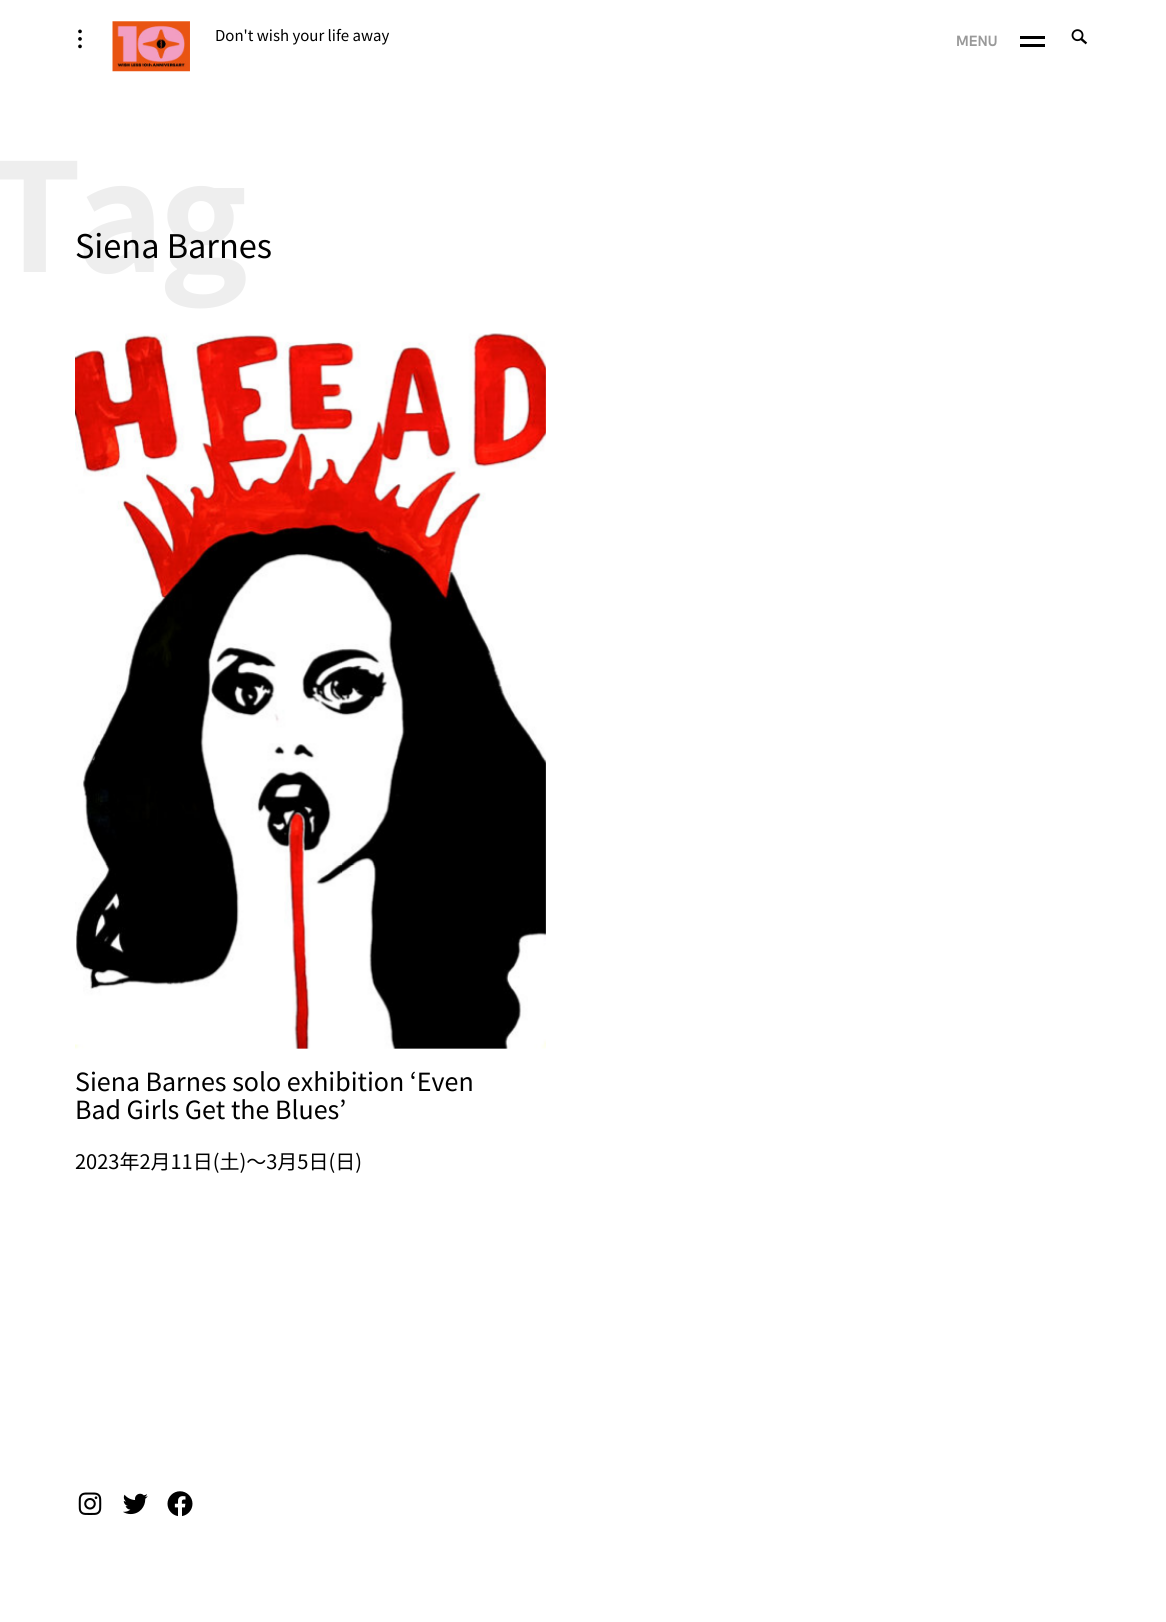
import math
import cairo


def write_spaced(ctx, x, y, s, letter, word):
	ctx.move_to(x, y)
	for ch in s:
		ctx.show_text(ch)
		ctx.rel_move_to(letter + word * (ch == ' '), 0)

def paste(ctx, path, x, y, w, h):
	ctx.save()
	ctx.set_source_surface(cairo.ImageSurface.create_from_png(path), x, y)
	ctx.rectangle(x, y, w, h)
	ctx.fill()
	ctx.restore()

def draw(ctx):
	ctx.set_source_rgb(1, 1, 1)
	ctx.paint()
	paste(ctx, 'media/1.png', 112, 21, 78, 51)
	ctx.select_font_face('Noto Sans JP')
	ctx.set_font_size(15)
	ctx.set_source_rgb(0, 0, 0)
	ctx.move_to(215, 41)
	ctx.show_text('Don\'t wish your life away')
	paste(ctx, 'media/2.png', 78, 29, 4, 20)
	ctx.select_font_face('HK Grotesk', cairo.FONT_SLANT_NORMAL, cairo.FONT_WEIGHT_BOLD)
	ctx.set_source_rgb(0.6, 0.6, 0.6)
	ctx.move_to(956, 46)
	ctx.show_text('MENU')
	ctx.set_source_rgb(0, 0, 0)
	ctx.rectangle(1020, 36, 25, 3)
	ctx.fill()
	ctx.rectangle(1020, 44, 25, 3)
	ctx.fill()
	paste(ctx, 'media/3.png', 1071, 29, 17, 16)
	ctx.select_font_face('Noto Sans JP', cairo.FONT_SLANT_NORMAL, cairo.FONT_WEIGHT_BOLD)
	ctx.set_font_size(150)
	ctx.set_source_rgb(0.933, 0.933, 0.933)
	write_spaced(ctx, -12, 272, 'Tag', -6, 0)
	ctx.select_font_face('Noto Sans JP')
	ctx.set_font_size(32.5)
	ctx.set_source_rgb(0, 0, 0)
	ctx.move_to(75, 258)
	ctx.show_text('Siena Barnes')
	paste(ctx, 'media/4.png', 75, 333, 471, 716)
	ctx.set_font_size(25)
	ctx.move_to(75, 1091)
	ctx.show_text('Siena Barnes solo exhibition ‘Even')
	ctx.move_to(75, 1119)
	ctx.show_text('Bad Girls Get the Blues’')
	ctx.set_font_size(20)
	ctx.move_to(75, 1169)
	ctx.show_text('2023年2月11日(土)～3月5日(日)')
	paste(ctx, 'media/5.png', 78, 1492, 24, 23)
	paste(ctx, 'media/6.png', 123, 1493, 25, 22)
	paste(ctx, 'media/7.png', 167, 1491, 26, 26)


surface = cairo.ImageSurface(cairo.FORMAT_RGB24, 1166, 1622)
ctx = cairo.Context(surface)
options = cairo.FontOptions()
options.set_hint_metrics(cairo.HINT_METRICS_OFF)
options.set_hint_style(cairo.HINT_STYLE_NONE)
ctx.set_font_options(options)
ctx.set_miter_limit(4)
draw(ctx)
surface.write_to_png('image.png')
